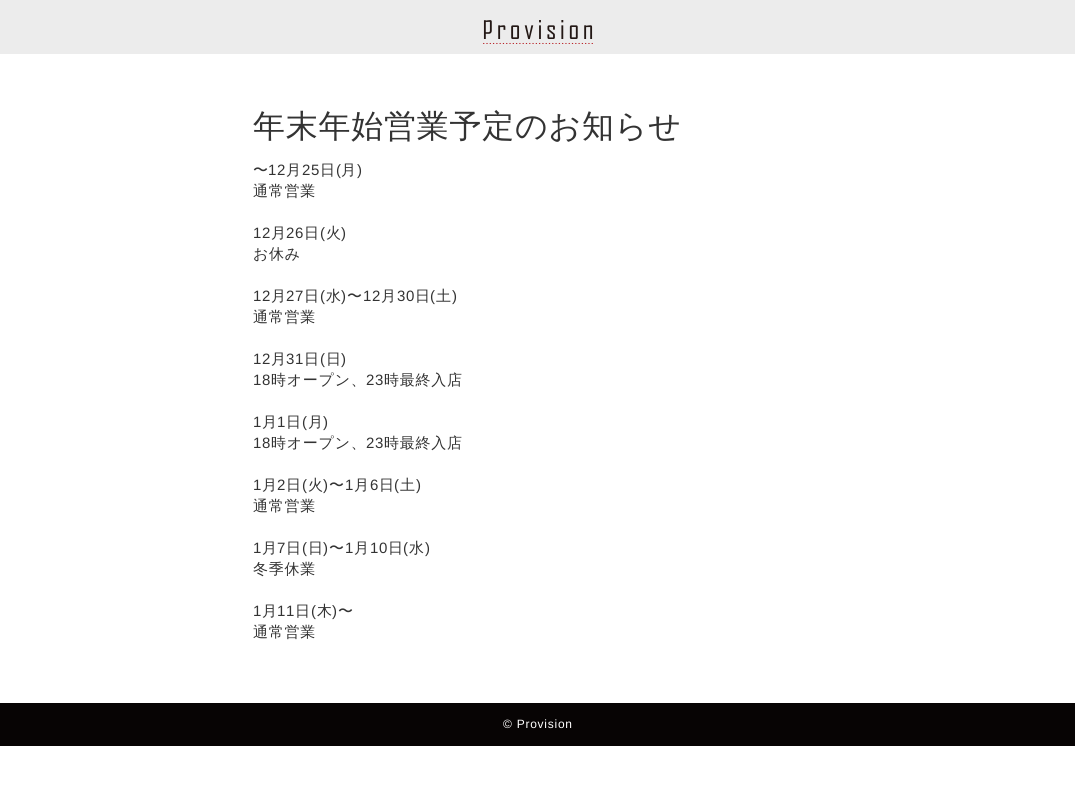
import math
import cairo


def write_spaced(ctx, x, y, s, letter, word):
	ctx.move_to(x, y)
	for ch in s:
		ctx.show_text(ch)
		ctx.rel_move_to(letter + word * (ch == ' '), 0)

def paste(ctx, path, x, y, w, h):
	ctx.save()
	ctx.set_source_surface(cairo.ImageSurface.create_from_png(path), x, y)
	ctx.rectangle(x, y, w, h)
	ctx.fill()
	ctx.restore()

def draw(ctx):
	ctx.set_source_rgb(1, 1, 1)
	ctx.paint()
	ctx.set_source_rgb(0.922, 0.922, 0.922)
	ctx.rectangle(0, 0, 1075, 54)
	ctx.fill()
	paste(ctx, 'media/1.png', 483, 20, 110, 24)
	ctx.select_font_face('WenQuanYi Zen Hei Medium')
	ctx.set_font_size(32)
	ctx.set_source_rgb(0.2, 0.2, 0.2)
	write_spaced(ctx, 253, 137, '年末年始営業予定のお知らせ', 0.75, 0)
	ctx.set_font_size(15)
	write_spaced(ctx, 253, 175, '〜', 0.75, 0)
	ctx.select_font_face('Liberation Sans')
	write_spaced(ctx, 268, 175, '12', 0.75, 0)
	ctx.select_font_face('WenQuanYi Zen Hei Medium')
	write_spaced(ctx, 286, 175, '月', 0.75, 0)
	ctx.select_font_face('Liberation Sans')
	write_spaced(ctx, 302, 175, '25', 0.75, 0)
	ctx.select_font_face('WenQuanYi Zen Hei Medium')
	write_spaced(ctx, 320, 175, '日', 0.75, 0)
	ctx.select_font_face('Liberation Sans')
	write_spaced(ctx, 336, 175, '(', 0.75, 0)
	ctx.select_font_face('WenQuanYi Zen Hei Medium')
	write_spaced(ctx, 341, 175, '月', 0.75, 0)
	ctx.select_font_face('Liberation Sans')
	write_spaced(ctx, 357, 175, ')', 0.75, 0)
	ctx.select_font_face('WenQuanYi Zen Hei Medium')
	write_spaced(ctx, 253, 196, '通常営業', 0.75, 0)
	ctx.select_font_face('Liberation Sans')
	write_spaced(ctx, 253, 238, '12', 0.75, 0)
	ctx.select_font_face('WenQuanYi Zen Hei Medium')
	write_spaced(ctx, 271, 238, '月', 0.75, 0)
	ctx.select_font_face('Liberation Sans')
	write_spaced(ctx, 286, 238, '26', 0.75, 0)
	ctx.select_font_face('WenQuanYi Zen Hei Medium')
	write_spaced(ctx, 304, 238, '日', 0.75, 0)
	ctx.select_font_face('Liberation Sans')
	write_spaced(ctx, 320, 238, '(', 0.75, 0)
	ctx.select_font_face('WenQuanYi Zen Hei Medium')
	write_spaced(ctx, 326, 238, '火', 0.75, 0)
	ctx.select_font_face('Liberation Sans')
	write_spaced(ctx, 341, 238, ')', 0.75, 0)
	ctx.select_font_face('WenQuanYi Zen Hei Medium')
	write_spaced(ctx, 253, 259, 'お休み', 0.75, 0)
	ctx.select_font_face('Liberation Sans')
	write_spaced(ctx, 253, 301, '12', 0.75, 0)
	ctx.select_font_face('WenQuanYi Zen Hei Medium')
	write_spaced(ctx, 271, 301, '月', 0.75, 0)
	ctx.select_font_face('Liberation Sans')
	write_spaced(ctx, 286, 301, '27', 0.75, 0)
	ctx.select_font_face('WenQuanYi Zen Hei Medium')
	write_spaced(ctx, 304, 301, '日', 0.75, 0)
	ctx.select_font_face('Liberation Sans')
	write_spaced(ctx, 320, 301, '(', 0.75, 0)
	ctx.select_font_face('WenQuanYi Zen Hei Medium')
	write_spaced(ctx, 326, 301, '水', 0.75, 0)
	ctx.select_font_face('Liberation Sans')
	write_spaced(ctx, 341, 301, ')', 0.75, 0)
	ctx.select_font_face('WenQuanYi Zen Hei Medium')
	write_spaced(ctx, 347, 301, '〜', 0.75, 0)
	ctx.select_font_face('Liberation Sans')
	write_spaced(ctx, 363, 301, '12', 0.75, 0)
	ctx.select_font_face('WenQuanYi Zen Hei Medium')
	write_spaced(ctx, 381, 301, '月', 0.75, 0)
	ctx.select_font_face('Liberation Sans')
	write_spaced(ctx, 397, 301, '30', 0.75, 0)
	ctx.select_font_face('WenQuanYi Zen Hei Medium')
	write_spaced(ctx, 415, 301, '日', 0.75, 0)
	ctx.select_font_face('Liberation Sans')
	write_spaced(ctx, 430, 301, '(', 0.75, 0)
	ctx.select_font_face('WenQuanYi Zen Hei Medium')
	write_spaced(ctx, 436, 301, '土', 0.75, 0)
	ctx.select_font_face('Liberation Sans')
	write_spaced(ctx, 452, 301, ')', 0.75, 0)
	ctx.select_font_face('WenQuanYi Zen Hei Medium')
	write_spaced(ctx, 253, 322, '通常営業', 0.75, 0)
	ctx.select_font_face('Liberation Sans')
	write_spaced(ctx, 253, 364, '12', 0.75, 0)
	ctx.select_font_face('WenQuanYi Zen Hei Medium')
	write_spaced(ctx, 271, 364, '月', 0.75, 0)
	ctx.select_font_face('Liberation Sans')
	write_spaced(ctx, 286, 364, '31', 0.75, 0)
	ctx.select_font_face('WenQuanYi Zen Hei Medium')
	write_spaced(ctx, 304, 364, '日', 0.75, 0)
	ctx.select_font_face('Liberation Sans')
	write_spaced(ctx, 320, 364, '(', 0.75, 0)
	ctx.select_font_face('WenQuanYi Zen Hei Medium')
	write_spaced(ctx, 326, 364, '日', 0.75, 0)
	ctx.select_font_face('Liberation Sans')
	write_spaced(ctx, 341, 364, ')', 0.75, 0)
	write_spaced(ctx, 253, 385, '18', 0.75, 0)
	ctx.select_font_face('WenQuanYi Zen Hei Medium')
	write_spaced(ctx, 271, 385, '時オープン、', 0.75, 0)
	ctx.select_font_face('Liberation Sans')
	write_spaced(ctx, 366, 385, '23', 0.75, 0)
	ctx.select_font_face('WenQuanYi Zen Hei Medium')
	write_spaced(ctx, 384, 385, '時最終入店', 0.75, 0)
	ctx.select_font_face('Liberation Sans')
	write_spaced(ctx, 253, 427, '1', 0.75, 0)
	ctx.select_font_face('WenQuanYi Zen Hei Medium')
	write_spaced(ctx, 262, 427, '月', 0.75, 0)
	ctx.select_font_face('Liberation Sans')
	write_spaced(ctx, 277, 427, '1', 0.75, 0)
	ctx.select_font_face('WenQuanYi Zen Hei Medium')
	write_spaced(ctx, 286, 427, '日', 0.75, 0)
	ctx.select_font_face('Liberation Sans')
	write_spaced(ctx, 302, 427, '(', 0.75, 0)
	ctx.select_font_face('WenQuanYi Zen Hei Medium')
	write_spaced(ctx, 308, 427, '月', 0.75, 0)
	ctx.select_font_face('Liberation Sans')
	write_spaced(ctx, 323, 427, ')', 0.75, 0)
	write_spaced(ctx, 253, 448, '18', 0.75, 0)
	ctx.select_font_face('WenQuanYi Zen Hei Medium')
	write_spaced(ctx, 271, 448, '時オープン、', 0.75, 0)
	ctx.select_font_face('Liberation Sans')
	write_spaced(ctx, 366, 448, '23', 0.75, 0)
	ctx.select_font_face('WenQuanYi Zen Hei Medium')
	write_spaced(ctx, 384, 448, '時最終入店', 0.75, 0)
	ctx.select_font_face('Liberation Sans')
	write_spaced(ctx, 253, 490, '1', 0.75, 0)
	ctx.select_font_face('WenQuanYi Zen Hei Medium')
	write_spaced(ctx, 262, 490, '月', 0.75, 0)
	ctx.select_font_face('Liberation Sans')
	write_spaced(ctx, 277, 490, '2', 0.75, 0)
	ctx.select_font_face('WenQuanYi Zen Hei Medium')
	write_spaced(ctx, 286, 490, '日', 0.75, 0)
	ctx.select_font_face('Liberation Sans')
	write_spaced(ctx, 302, 490, '(', 0.75, 0)
	ctx.select_font_face('WenQuanYi Zen Hei Medium')
	write_spaced(ctx, 308, 490, '火', 0.75, 0)
	ctx.select_font_face('Liberation Sans')
	write_spaced(ctx, 323, 490, ')', 0.75, 0)
	ctx.select_font_face('WenQuanYi Zen Hei Medium')
	write_spaced(ctx, 329, 490, '〜', 0.75, 0)
	ctx.select_font_face('Liberation Sans')
	write_spaced(ctx, 345, 490, '1', 0.75, 0)
	ctx.select_font_face('WenQuanYi Zen Hei Medium')
	write_spaced(ctx, 354, 490, '月', 0.75, 0)
	ctx.select_font_face('Liberation Sans')
	write_spaced(ctx, 370, 490, '6', 0.75, 0)
	ctx.select_font_face('WenQuanYi Zen Hei Medium')
	write_spaced(ctx, 379, 490, '日', 0.75, 0)
	ctx.select_font_face('Liberation Sans')
	write_spaced(ctx, 394, 490, '(', 0.75, 0)
	ctx.select_font_face('WenQuanYi Zen Hei Medium')
	write_spaced(ctx, 400, 490, '土', 0.75, 0)
	ctx.select_font_face('Liberation Sans')
	write_spaced(ctx, 416, 490, ')', 0.75, 0)
	ctx.select_font_face('WenQuanYi Zen Hei Medium')
	write_spaced(ctx, 253, 511, '通常営業', 0.75, 0)
	ctx.select_font_face('Liberation Sans')
	write_spaced(ctx, 253, 553, '1', 0.75, 0)
	ctx.select_font_face('WenQuanYi Zen Hei Medium')
	write_spaced(ctx, 262, 553, '月', 0.75, 0)
	ctx.select_font_face('Liberation Sans')
	write_spaced(ctx, 277, 553, '7', 0.75, 0)
	ctx.select_font_face('WenQuanYi Zen Hei Medium')
	write_spaced(ctx, 286, 553, '日', 0.75, 0)
	ctx.select_font_face('Liberation Sans')
	write_spaced(ctx, 302, 553, '(', 0.75, 0)
	ctx.select_font_face('WenQuanYi Zen Hei Medium')
	write_spaced(ctx, 308, 553, '日', 0.75, 0)
	ctx.select_font_face('Liberation Sans')
	write_spaced(ctx, 323, 553, ')', 0.75, 0)
	ctx.select_font_face('WenQuanYi Zen Hei Medium')
	write_spaced(ctx, 329, 553, '〜', 0.75, 0)
	ctx.select_font_face('Liberation Sans')
	write_spaced(ctx, 345, 553, '1', 0.75, 0)
	ctx.select_font_face('WenQuanYi Zen Hei Medium')
	write_spaced(ctx, 354, 553, '月', 0.75, 0)
	ctx.select_font_face('Liberation Sans')
	write_spaced(ctx, 370, 553, '10', 0.75, 0)
	ctx.select_font_face('WenQuanYi Zen Hei Medium')
	write_spaced(ctx, 388, 553, '日', 0.75, 0)
	ctx.select_font_face('Liberation Sans')
	write_spaced(ctx, 403, 553, '(', 0.75, 0)
	ctx.select_font_face('WenQuanYi Zen Hei Medium')
	write_spaced(ctx, 409, 553, '水', 0.75, 0)
	ctx.select_font_face('Liberation Sans')
	write_spaced(ctx, 425, 553, ')', 0.75, 0)
	ctx.select_font_face('WenQuanYi Zen Hei Medium')
	write_spaced(ctx, 253, 574, '冬季休業', 0.75, 0)
	ctx.select_font_face('Liberation Sans')
	write_spaced(ctx, 253, 616, '1', 0.75, 0)
	ctx.select_font_face('WenQuanYi Zen Hei Medium')
	write_spaced(ctx, 262, 616, '月', 0.75, 0)
	ctx.select_font_face('Liberation Sans')
	write_spaced(ctx, 277, 616, '11', 0.75, 0)
	ctx.select_font_face('WenQuanYi Zen Hei Medium')
	write_spaced(ctx, 295, 616, '日', 0.75, 0)
	ctx.select_font_face('Liberation Sans')
	write_spaced(ctx, 311, 616, '(', 0.75, 0)
	ctx.select_font_face('WenQuanYi Zen Hei Medium')
	write_spaced(ctx, 317, 616, '木', 0.75, 0)
	ctx.select_font_face('Liberation Sans')
	write_spaced(ctx, 332, 616, ')', 0.75, 0)
	ctx.select_font_face('WenQuanYi Zen Hei Medium')
	write_spaced(ctx, 338, 616, '〜', 0.75, 0)
	write_spaced(ctx, 253, 637, '通常営業', 0.75, 0)
	ctx.set_source_rgb(0.031, 0.016, 0.016)
	ctx.rectangle(0, 703, 1075, 43)
	ctx.fill()
	ctx.select_font_face('Liberation Sans')
	ctx.set_font_size(12)
	ctx.set_source_rgb(1, 1, 1)
	write_spaced(ctx, 503, 728, '© Provision', 0.75, 0)


surface = cairo.ImageSurface(cairo.FORMAT_RGB24, 1075, 797)
ctx = cairo.Context(surface)
options = cairo.FontOptions()
options.set_hint_metrics(cairo.HINT_METRICS_OFF)
options.set_hint_style(cairo.HINT_STYLE_NONE)
ctx.set_font_options(options)
ctx.set_miter_limit(4)
draw(ctx)
surface.write_to_png('image.png')
